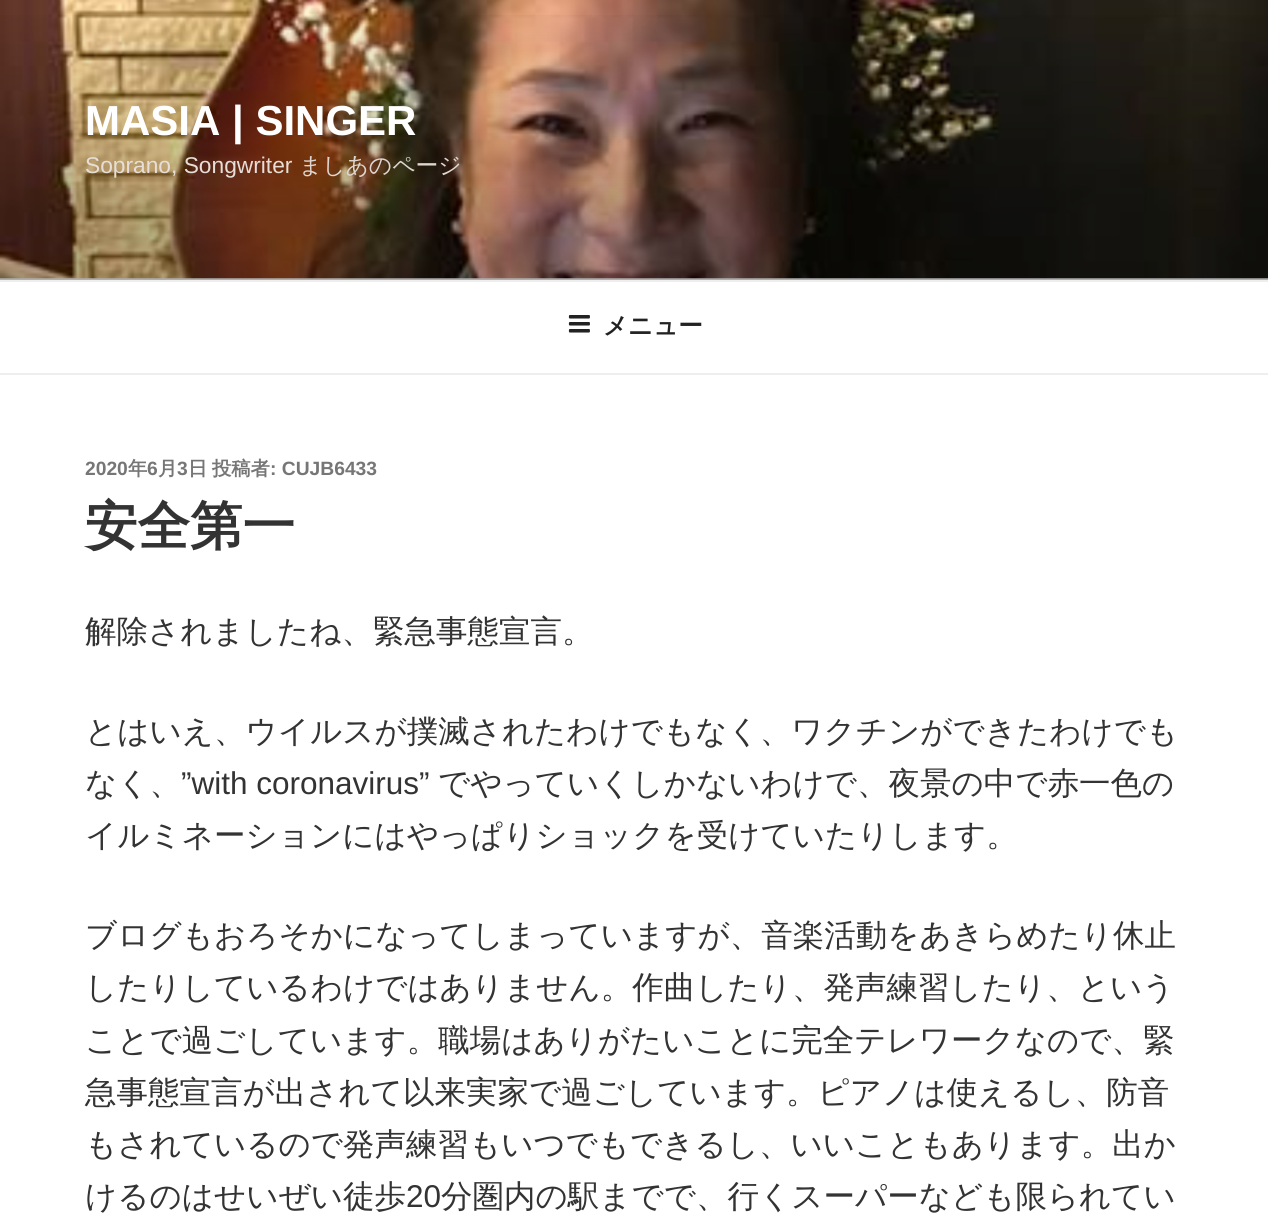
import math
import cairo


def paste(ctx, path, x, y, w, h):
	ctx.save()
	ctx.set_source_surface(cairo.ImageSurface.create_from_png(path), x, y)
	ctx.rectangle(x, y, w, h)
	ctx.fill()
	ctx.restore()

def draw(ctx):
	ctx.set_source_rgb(1, 1, 1)
	ctx.paint()
	ctx.set_source_rgb(0.98, 0.98, 0.98)
	ctx.rectangle(0, 278, 1268, 2)
	ctx.fill()
	paste(ctx, 'media/1.png', 0, 0, 1268, 279)
	gradient = cairo.LinearGradient(634, 0, 634, 280)
	gradient.add_color_stop_rgba(0, 0, 0, 0, 0)
	gradient.add_color_stop_rgba(0.75, 0, 0, 0, 0.3)
	gradient.add_color_stop_rgba(1, 0, 0, 0, 0.3)
	ctx.set_source(gradient)
	ctx.rectangle(0, 15, 1268, 265)
	ctx.fill()
	ctx.select_font_face('Liberation Sans', cairo.FONT_SLANT_NORMAL, cairo.FONT_WEIGHT_BOLD)
	ctx.set_font_size(42)
	ctx.set_source_rgb(1, 1, 1)
	ctx.move_to(85, 135)
	ctx.show_text('MASIA | SINGER')
	ctx.select_font_face('Liberation Sans')
	ctx.set_font_size(22.75)
	ctx.set_source_rgb(0.906, 0.871, 0.843)
	ctx.move_to(85, 173)
	ctx.show_text('Soprano, Songwriter')
	ctx.select_font_face('WenQuanYi Zen Hei Medium')
	ctx.set_source_rgb(0.871, 0.843, 0.82)
	ctx.move_to(299, 173)
	ctx.show_text('ましあのページ')
	ctx.set_source_rgb(0.933, 0.933, 0.933)
	ctx.rectangle(0, 280, 1268, 2)
	ctx.fill()
	ctx.rectangle(0, 373, 1268, 2)
	ctx.fill()
	paste(ctx, 'media/2.png', 568, 315, 22, 18)
	ctx.select_font_face('WenQuanYi Zen Hei', cairo.FONT_SLANT_NORMAL, cairo.FONT_WEIGHT_BOLD)
	ctx.set_font_size(24.5)
	ctx.set_source_rgb(0.133, 0.133, 0.133)
	ctx.move_to(603, 334)
	ctx.show_text('メニュー')
	ctx.select_font_face('Liberation Sans', cairo.FONT_SLANT_NORMAL, cairo.FONT_WEIGHT_BOLD)
	ctx.set_font_size(19.25)
	ctx.set_source_rgb(0.463, 0.463, 0.463)
	ctx.move_to(85, 475)
	ctx.show_text('2020')
	ctx.select_font_face('WenQuanYi Zen Hei', cairo.FONT_SLANT_NORMAL, cairo.FONT_WEIGHT_BOLD)
	ctx.move_to(128, 475)
	ctx.show_text('年')
	ctx.select_font_face('Liberation Sans', cairo.FONT_SLANT_NORMAL, cairo.FONT_WEIGHT_BOLD)
	ctx.move_to(147, 475)
	ctx.show_text('6')
	ctx.select_font_face('WenQuanYi Zen Hei', cairo.FONT_SLANT_NORMAL, cairo.FONT_WEIGHT_BOLD)
	ctx.move_to(158, 475)
	ctx.show_text('月')
	ctx.select_font_face('Liberation Sans', cairo.FONT_SLANT_NORMAL, cairo.FONT_WEIGHT_BOLD)
	ctx.move_to(177, 475)
	ctx.show_text('3')
	ctx.select_font_face('WenQuanYi Zen Hei', cairo.FONT_SLANT_NORMAL, cairo.FONT_WEIGHT_BOLD)
	ctx.move_to(188, 475)
	ctx.show_text('日')
	ctx.move_to(212, 475)
	ctx.show_text('投稿者')
	ctx.select_font_face('Liberation Sans', cairo.FONT_SLANT_NORMAL, cairo.FONT_WEIGHT_BOLD)
	ctx.move_to(270, 475)
	ctx.show_text(': CUJB6433')
	ctx.select_font_face('WenQuanYi Zen Hei', cairo.FONT_SLANT_NORMAL, cairo.FONT_WEIGHT_BOLD)
	ctx.set_font_size(52.5)
	ctx.set_source_rgb(0.2, 0.2, 0.2)
	ctx.move_to(85, 544)
	ctx.show_text('安全第一')
	ctx.select_font_face('WenQuanYi Zen Hei Medium')
	ctx.set_font_size(31.5)
	for x, y, s in [
		(85, 642, '解除されましたね、緊急事態宣言。'),
		(85, 742, 'とはいえ、ウイルスが撲滅されたわけでもなく、ワクチンができたわけでも'),
		(85, 794, 'なく、'),
	]:
		ctx.move_to(x, y)
		ctx.show_text(s)
	ctx.select_font_face('Liberation Sans')
	ctx.move_to(181, 794)
	ctx.show_text('”with coronavirus”')
	ctx.select_font_face('WenQuanYi Zen Hei Medium')
	for x, y, s in [
		(438, 794, 'でやっていくしかないわけで、夜景の中で赤一色の'),
		(85, 846, 'イルミネーションにはやっぱりショックを受けていたりします。'),
		(85, 946, 'ブログもおろそかになってしまっていますが、音楽活動をあきらめたり休止'),
		(85, 998, 'したりしているわけではありません。作曲したり、発声練習したり、という'),
		(85, 1051, 'ことで過ごしています。職場はありがたいことに完全テレワークなので、緊'),
		(85, 1103, '急事態宣言が出されて以来実家で過ごしています。ピアノは使えるし、防音'),
		(85, 1155, 'もされているので発声練習もいつでもできるし、いいこともあります。出か'),
		(85, 1207, 'けるのはせいぜい徒歩'),
	]:
		ctx.move_to(x, y)
		ctx.show_text(s)
	ctx.select_font_face('Liberation Sans')
	ctx.move_to(406, 1207)
	ctx.show_text('20')
	ctx.select_font_face('WenQuanYi Zen Hei Medium')
	ctx.move_to(441, 1207)
	ctx.show_text('分圏内の駅までで、行くスーパーなども限られてい')


surface = cairo.ImageSurface(cairo.FORMAT_RGB24, 1268, 1221)
ctx = cairo.Context(surface)
options = cairo.FontOptions()
options.set_hint_metrics(cairo.HINT_METRICS_OFF)
options.set_hint_style(cairo.HINT_STYLE_NONE)
ctx.set_font_options(options)
ctx.set_miter_limit(4)
draw(ctx)
surface.write_to_png('image.png')
